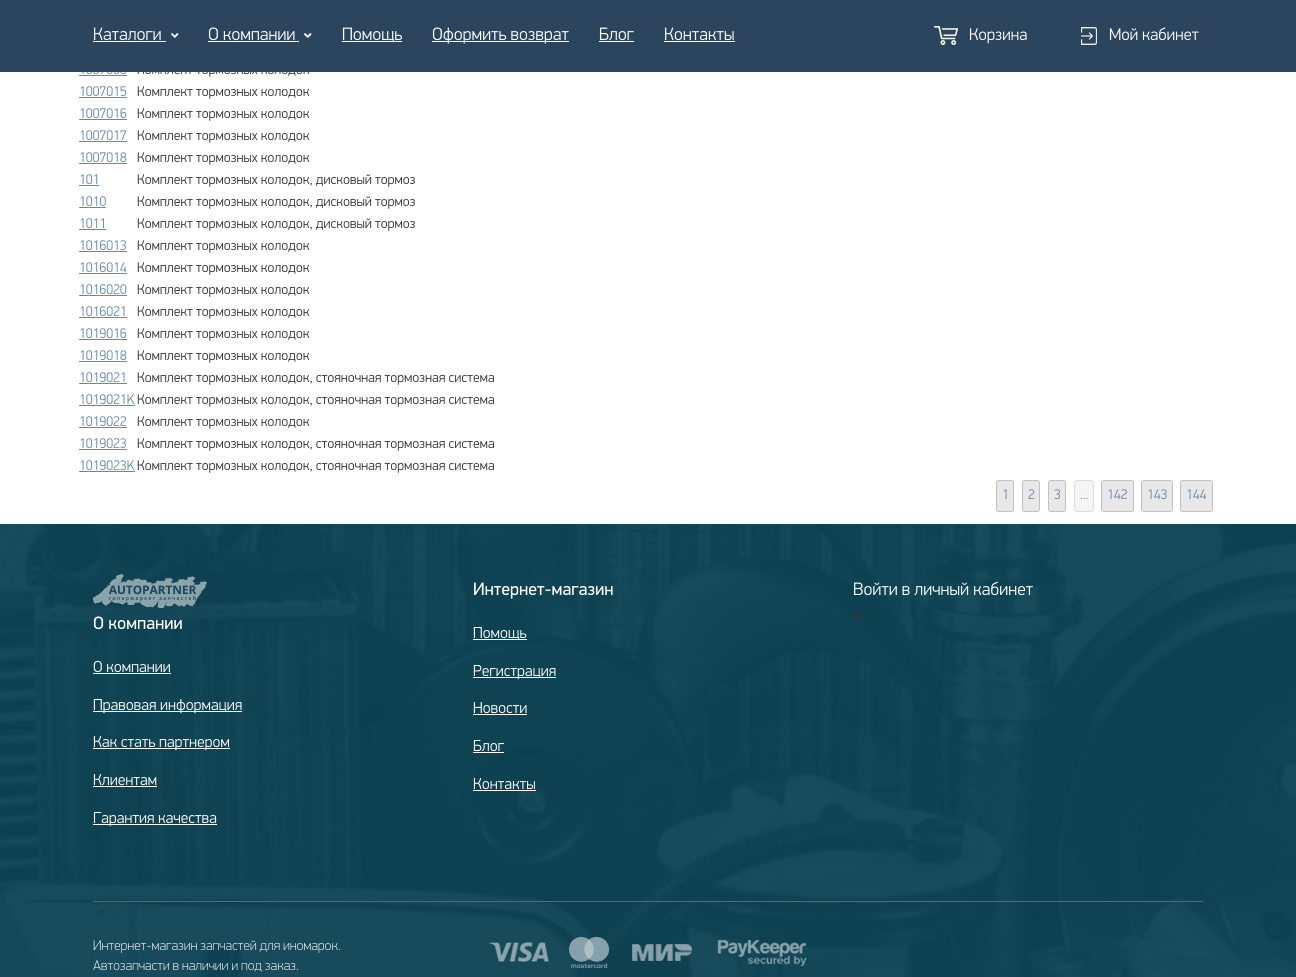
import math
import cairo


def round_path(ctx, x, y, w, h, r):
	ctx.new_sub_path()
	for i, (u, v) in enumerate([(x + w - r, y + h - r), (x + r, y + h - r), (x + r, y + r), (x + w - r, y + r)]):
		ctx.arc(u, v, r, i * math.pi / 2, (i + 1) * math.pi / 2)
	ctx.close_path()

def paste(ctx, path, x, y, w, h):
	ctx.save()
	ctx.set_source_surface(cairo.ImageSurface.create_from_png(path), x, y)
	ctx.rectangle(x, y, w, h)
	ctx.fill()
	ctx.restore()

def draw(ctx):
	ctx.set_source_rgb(1, 1, 1)
	ctx.paint()
	ctx.set_source_rgb(0.169, 0.271, 0.373)
	ctx.rectangle(0, 0, 1296, 72)
	ctx.fill()
	paste(ctx, 'media/1.png', 94, 27, 67, 14)
	paste(ctx, 'media/2.png', 171, 33, 8, 5)
	ctx.set_source_rgb(1, 1, 1)
	ctx.rectangle(93, 41, 73, 1)
	ctx.fill()
	paste(ctx, 'media/3.png', 208, 27, 87, 14)
	paste(ctx, 'media/2.png', 304, 33, 8, 5)
	ctx.rectangle(208, 41, 91, 1)
	ctx.fill()
	ctx.rectangle(342, 41, 60, 1)
	ctx.fill()
	paste(ctx, 'media/4.png', 342, 27, 60, 16)
	ctx.rectangle(432, 41, 137, 1)
	ctx.fill()
	paste(ctx, 'media/5.png', 432, 27, 137, 17)
	paste(ctx, 'media/6.png', 599, 27, 35, 14)
	ctx.rectangle(599, 41, 35, 1)
	ctx.fill()
	paste(ctx, 'media/7.png', 665, 27, 69, 14)
	ctx.rectangle(664, 41, 71, 1)
	ctx.fill()
	paste(ctx, 'media/8.png', 934, 26, 24, 19)
	paste(ctx, 'media/9.png', 969, 28, 58, 16)
	paste(ctx, 'media/10.png', 1081, 27, 16, 18)
	paste(ctx, 'media/11.png', 1109, 27, 90, 14)
	paste(ctx, 'media/12.png', 82, 72, 45, 3)
	ctx.set_source_rgb(0.4, 0.533, 0.667)
	ctx.rectangle(79, 75, 48, 1)
	ctx.fill()
	paste(ctx, 'media/13.png', 137, 72, 173, 5)
	paste(ctx, 'media/14.png', 80, 86, 47, 11)
	ctx.rectangle(79, 97, 48, 1)
	ctx.fill()
	paste(ctx, 'media/15.png', 137, 86, 173, 13)
	paste(ctx, 'media/16.png', 80, 108, 47, 11)
	ctx.rectangle(79, 119, 48, 1)
	ctx.fill()
	paste(ctx, 'media/15.png', 137, 108, 173, 13)
	paste(ctx, 'media/17.png', 80, 130, 47, 11)
	ctx.rectangle(79, 141, 48, 1)
	ctx.fill()
	paste(ctx, 'media/15.png', 137, 130, 173, 13)
	paste(ctx, 'media/18.png', 80, 152, 47, 11)
	ctx.rectangle(79, 163, 48, 1)
	ctx.fill()
	paste(ctx, 'media/15.png', 137, 152, 173, 13)
	paste(ctx, 'media/19.png', 80, 174, 18, 11)
	ctx.rectangle(79, 185, 20, 1)
	ctx.fill()
	paste(ctx, 'media/20.png', 137, 174, 278, 13)
	paste(ctx, 'media/21.png', 80, 196, 26, 11)
	ctx.rectangle(79, 207, 27, 1)
	ctx.fill()
	paste(ctx, 'media/20.png', 137, 196, 278, 13)
	paste(ctx, 'media/22.png', 80, 218, 24, 11)
	ctx.rectangle(79, 229, 27, 1)
	ctx.fill()
	paste(ctx, 'media/20.png', 137, 218, 278, 13)
	paste(ctx, 'media/23.png', 80, 240, 46, 11)
	ctx.rectangle(79, 251, 48, 1)
	ctx.fill()
	paste(ctx, 'media/15.png', 137, 240, 173, 13)
	paste(ctx, 'media/24.png', 80, 262, 47, 11)
	ctx.rectangle(79, 273, 48, 1)
	ctx.fill()
	paste(ctx, 'media/15.png', 137, 262, 173, 13)
	paste(ctx, 'media/25.png', 80, 284, 47, 11)
	ctx.rectangle(79, 295, 48, 1)
	ctx.fill()
	paste(ctx, 'media/15.png', 137, 284, 173, 13)
	paste(ctx, 'media/26.png', 80, 306, 45, 11)
	ctx.rectangle(79, 317, 48, 1)
	ctx.fill()
	paste(ctx, 'media/15.png', 137, 306, 173, 13)
	paste(ctx, 'media/27.png', 80, 328, 47, 11)
	ctx.rectangle(79, 339, 48, 1)
	ctx.fill()
	paste(ctx, 'media/15.png', 137, 328, 173, 13)
	paste(ctx, 'media/28.png', 80, 350, 47, 11)
	ctx.rectangle(79, 361, 48, 1)
	ctx.fill()
	paste(ctx, 'media/15.png', 137, 350, 173, 13)
	paste(ctx, 'media/29.png', 80, 372, 45, 11)
	ctx.rectangle(79, 383, 48, 1)
	ctx.fill()
	paste(ctx, 'media/30.png', 137, 372, 357, 13)
	paste(ctx, 'media/31.png', 80, 394, 55, 11)
	ctx.rectangle(79, 405, 56, 1)
	ctx.fill()
	paste(ctx, 'media/30.png', 137, 394, 357, 13)
	paste(ctx, 'media/32.png', 80, 416, 47, 11)
	ctx.rectangle(79, 427, 48, 1)
	ctx.fill()
	paste(ctx, 'media/15.png', 137, 416, 173, 13)
	paste(ctx, 'media/33.png', 80, 438, 46, 11)
	ctx.rectangle(79, 449, 48, 1)
	ctx.fill()
	paste(ctx, 'media/30.png', 137, 438, 357, 13)
	paste(ctx, 'media/34.png', 80, 460, 55, 11)
	ctx.rectangle(79, 471, 56, 1)
	ctx.fill()
	paste(ctx, 'media/30.png', 137, 460, 357, 13)
	ctx.set_source_rgb(0.91, 0.91, 0.91)
	round_path(ctx, 996.5, 480.5, 17, 31, 2.5)
	ctx.fill_preserve()
	ctx.set_source_rgb(0.753, 0.753, 0.753)
	ctx.set_line_width(1)
	ctx.stroke()
	paste(ctx, 'media/35.png', 1003, 489, 4, 10)
	ctx.set_source_rgb(0.91, 0.91, 0.91)
	round_path(ctx, 1022.5, 480.5, 17, 31, 2.5)
	ctx.fill_preserve()
	ctx.set_source_rgb(0.753, 0.753, 0.753)
	ctx.stroke()
	paste(ctx, 'media/36.png', 1028, 489, 7, 10)
	ctx.set_source_rgb(0.91, 0.91, 0.91)
	round_path(ctx, 1048.5, 480.5, 17, 31, 2.5)
	ctx.fill_preserve()
	ctx.set_source_rgb(0.753, 0.753, 0.753)
	ctx.stroke()
	paste(ctx, 'media/37.png', 1054, 489, 6, 11)
	ctx.set_source_rgb(0.957, 0.957, 0.957)
	round_path(ctx, 1074.5, 480.5, 19, 31, 2.5)
	ctx.fill_preserve()
	ctx.set_source_rgb(0.878, 0.878, 0.878)
	ctx.stroke()
	paste(ctx, 'media/38.png', 1080, 497, 8, 2)
	ctx.set_source_rgb(0.91, 0.91, 0.91)
	round_path(ctx, 1101.5, 480.5, 32, 31, 2.5)
	ctx.fill_preserve()
	ctx.set_source_rgb(0.753, 0.753, 0.753)
	ctx.stroke()
	paste(ctx, 'media/39.png', 1108, 489, 19, 10)
	ctx.set_source_rgb(0.91, 0.91, 0.91)
	round_path(ctx, 1141.5, 480.5, 31, 31, 2.5)
	ctx.fill_preserve()
	ctx.set_source_rgb(0.753, 0.753, 0.753)
	ctx.stroke()
	paste(ctx, 'media/40.png', 1148, 489, 19, 11)
	ctx.set_source_rgb(0.91, 0.91, 0.91)
	round_path(ctx, 1180.5, 480.5, 32, 31, 2.5)
	ctx.fill_preserve()
	ctx.set_source_rgb(0.753, 0.753, 0.753)
	ctx.stroke()
	paste(ctx, 'media/41.png', 1187, 489, 19, 10)
	paste(ctx, 'media/42.png', 0, 524, 1296, 453)
	paste(ctx, 'media/43.png', 93, 574, 114, 34)
	paste(ctx, 'media/44.png', 93, 616, 89, 14)
	paste(ctx, 'media/45.png', 93, 660, 77, 13)
	ctx.set_source_rgb(1, 1, 1)
	ctx.rectangle(93, 673, 78, 1)
	ctx.fill()
	ctx.rectangle(93, 711, 149, 1)
	ctx.fill()
	paste(ctx, 'media/46.png', 93, 699, 149, 15)
	ctx.rectangle(93, 748, 137, 1)
	ctx.fill()
	paste(ctx, 'media/47.png', 93, 736, 136, 15)
	paste(ctx, 'media/48.png', 93, 774, 64, 12)
	ctx.rectangle(93, 786, 64, 1)
	ctx.fill()
	ctx.rectangle(93, 824, 124, 1)
	ctx.fill()
	paste(ctx, 'media/49.png', 93, 812, 124, 15)
	paste(ctx, 'media/50.png', 474, 582, 139, 17)
	paste(ctx, 'media/51.png', 473, 627, 54, 12)
	ctx.rectangle(473, 639, 54, 1)
	ctx.fill()
	ctx.rectangle(473, 677, 83, 1)
	ctx.fill()
	paste(ctx, 'media/52.png', 473, 665, 83, 15)
	paste(ctx, 'media/53.png', 473, 702, 54, 12)
	ctx.rectangle(473, 714, 54, 1)
	ctx.fill()
	paste(ctx, 'media/54.png', 473, 740, 31, 12)
	ctx.rectangle(473, 752, 31, 1)
	ctx.fill()
	paste(ctx, 'media/55.png', 473, 778, 62, 12)
	ctx.rectangle(473, 790, 63, 1)
	ctx.fill()
	paste(ctx, 'media/56.png', 854, 581, 179, 15)
	paste(ctx, 'media/57.png', 853, 613, 9, 6)
	ctx.set_source_rgb(0.267, 0.431, 0.482)
	ctx.rectangle(93, 901, 1110, 1)
	ctx.fill()
	paste(ctx, 'media/58.png', 93, 940, 247, 13)
	paste(ctx, 'media/59.png', 93, 960, 205, 12)
	paste(ctx, 'media/60.png', 489, 937, 318, 31)


surface = cairo.ImageSurface(cairo.FORMAT_RGB24, 1296, 977)
ctx = cairo.Context(surface)
options = cairo.FontOptions()
options.set_hint_metrics(cairo.HINT_METRICS_OFF)
options.set_hint_style(cairo.HINT_STYLE_NONE)
ctx.set_font_options(options)
ctx.set_miter_limit(4)
draw(ctx)
surface.write_to_png('image.png')
